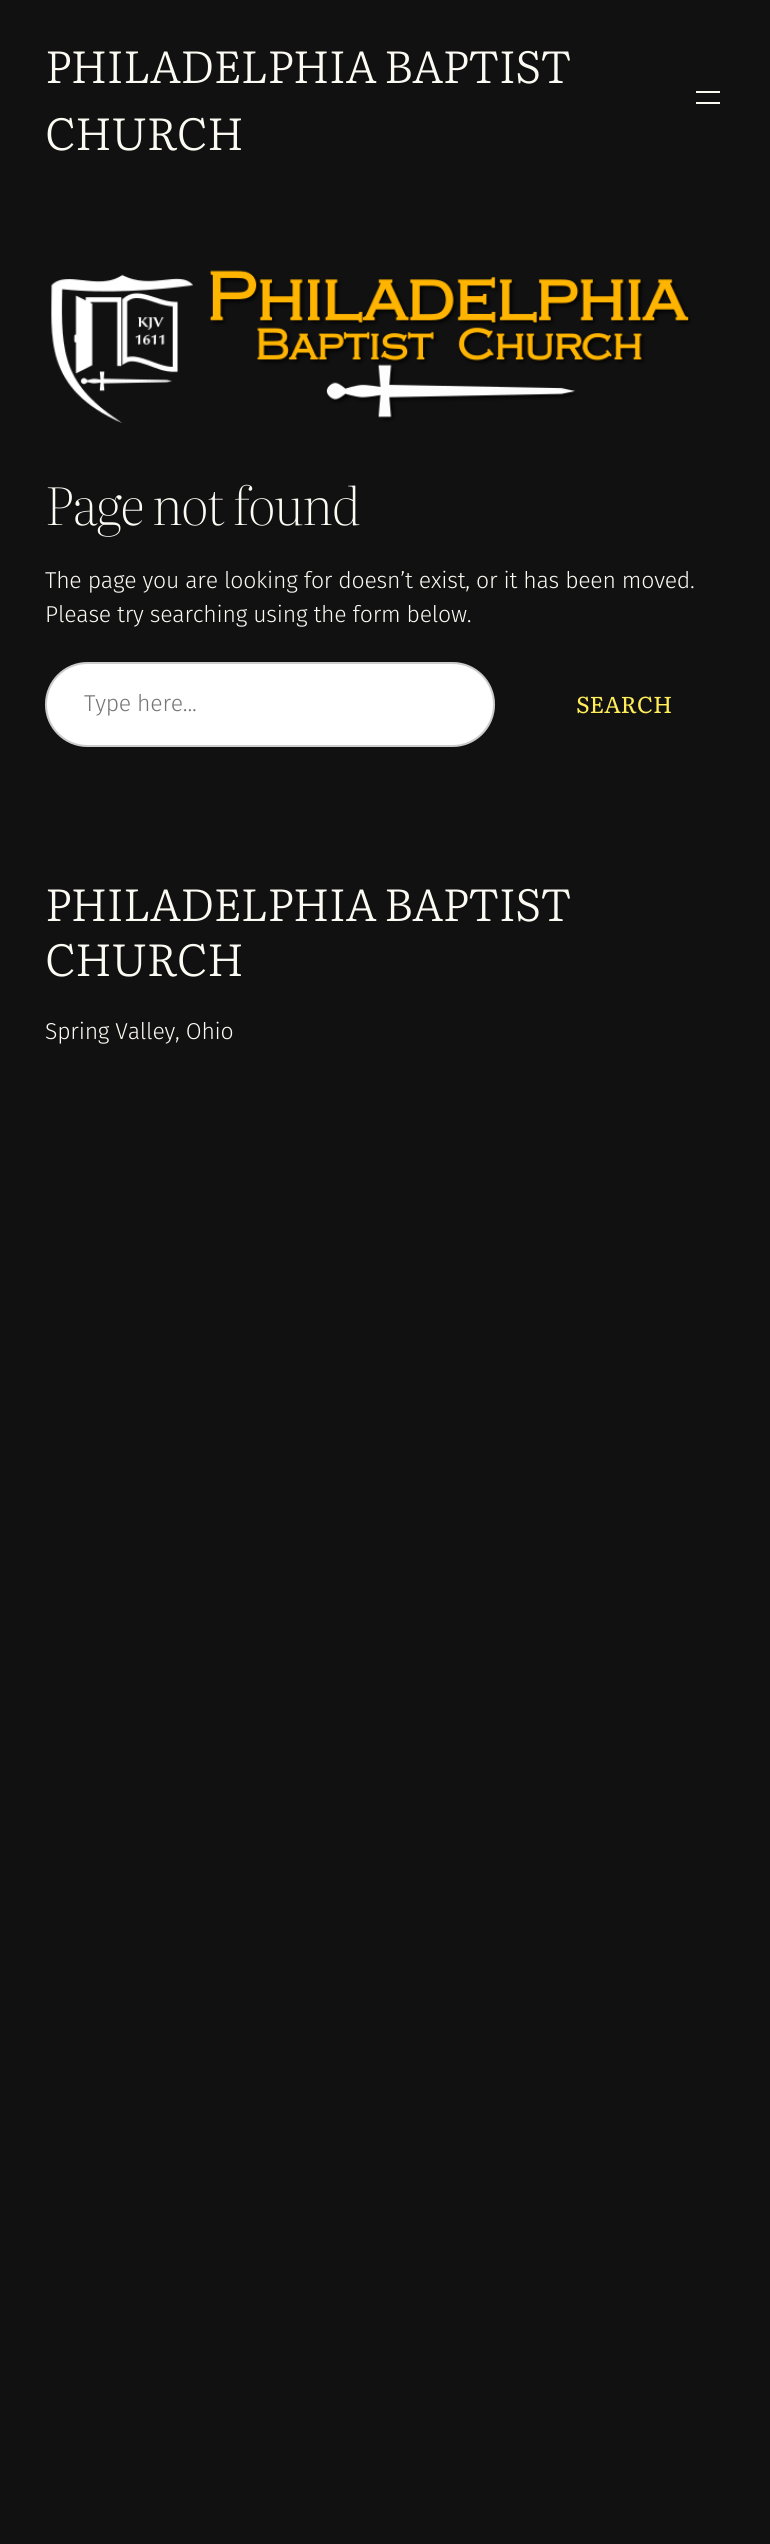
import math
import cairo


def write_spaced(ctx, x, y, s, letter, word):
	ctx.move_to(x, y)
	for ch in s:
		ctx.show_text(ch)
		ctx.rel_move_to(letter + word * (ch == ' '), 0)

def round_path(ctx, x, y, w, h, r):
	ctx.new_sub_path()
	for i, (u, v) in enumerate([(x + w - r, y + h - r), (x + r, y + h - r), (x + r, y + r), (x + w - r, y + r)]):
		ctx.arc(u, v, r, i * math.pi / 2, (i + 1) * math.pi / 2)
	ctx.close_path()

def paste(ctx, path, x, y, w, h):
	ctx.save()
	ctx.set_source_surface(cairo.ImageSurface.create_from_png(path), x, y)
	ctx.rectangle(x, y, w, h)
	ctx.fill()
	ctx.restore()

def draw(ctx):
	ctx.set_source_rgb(0.067, 0.067, 0.067)
	ctx.paint()
	ctx.select_font_face('Literata Light')
	ctx.set_font_size(45)
	ctx.set_source_rgb(0.984, 0.98, 0.953)
	write_spaced(ctx, 45, 83, 'PHILADELPHIA BAPTIST', -0.8, 0)
	write_spaced(ctx, 45, 150, 'CHURCH', -0.8, 0)
	ctx.rectangle(696, 91, 24, 2)
	ctx.fill()
	ctx.rectangle(696, 102, 24, 2)
	ctx.fill()
	paste(ctx, 'media/1.png', 51, 270, 640, 153)
	ctx.select_font_face('Literata ExtraLight')
	ctx.set_font_size(51.5)
	write_spaced(ctx, 45, 525, 'Page not found', -1, 0)
	ctx.select_font_face('Fira Sans Light')
	ctx.set_font_size(23)
	write_spaced(ctx, 45, 588, 'The page you are looking for doesn’t exist, or it has been moved.', -0.23, 0)
	write_spaced(ctx, 45, 622, 'Please try searching using the form below.', -0.23, 0)
	ctx.set_source_rgb(1, 1, 1)
	round_path(ctx, 45, 662, 450, 85, 42.5)
	ctx.fill()
	round_path(ctx, 46, 663, 448, 83, 41.5)
	ctx.set_source_rgba(0, 0, 0, 0.2)
	ctx.stroke()
	ctx.set_source_rgb(0.459, 0.459, 0.459)
	write_spaced(ctx, 84, 711, 'Type here...', -0.23, 0)
	ctx.select_font_face('Literata')
	ctx.set_source_rgb(1, 0.933, 0.345)
	write_spaced(ctx, 576, 713, 'SEARCH', -0.23, 0)
	ctx.select_font_face('Literata Light')
	ctx.set_font_size(45)
	ctx.set_source_rgb(0.984, 0.98, 0.953)
	write_spaced(ctx, 45, 921, 'PHILADELPHIA BAPTIST', -0.8, 0)
	write_spaced(ctx, 45, 976, 'CHURCH', -0.8, 0)
	ctx.select_font_face('Fira Sans Light')
	ctx.set_font_size(23)
	write_spaced(ctx, 45, 1039, 'Spring Valley, Ohio', -0.23, 0)


surface = cairo.ImageSurface(cairo.FORMAT_RGB24, 770, 2544)
ctx = cairo.Context(surface)
options = cairo.FontOptions()
options.set_hint_metrics(cairo.HINT_METRICS_OFF)
options.set_hint_style(cairo.HINT_STYLE_NONE)
ctx.set_font_options(options)
ctx.set_miter_limit(4)
draw(ctx)
surface.write_to_png('image.png')
